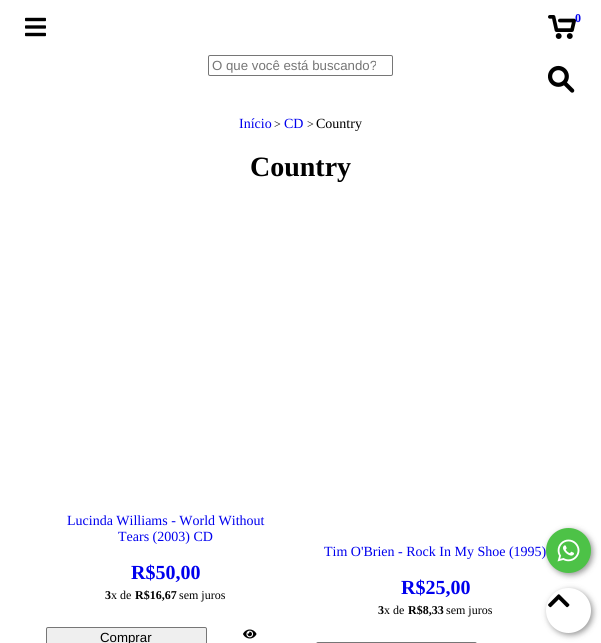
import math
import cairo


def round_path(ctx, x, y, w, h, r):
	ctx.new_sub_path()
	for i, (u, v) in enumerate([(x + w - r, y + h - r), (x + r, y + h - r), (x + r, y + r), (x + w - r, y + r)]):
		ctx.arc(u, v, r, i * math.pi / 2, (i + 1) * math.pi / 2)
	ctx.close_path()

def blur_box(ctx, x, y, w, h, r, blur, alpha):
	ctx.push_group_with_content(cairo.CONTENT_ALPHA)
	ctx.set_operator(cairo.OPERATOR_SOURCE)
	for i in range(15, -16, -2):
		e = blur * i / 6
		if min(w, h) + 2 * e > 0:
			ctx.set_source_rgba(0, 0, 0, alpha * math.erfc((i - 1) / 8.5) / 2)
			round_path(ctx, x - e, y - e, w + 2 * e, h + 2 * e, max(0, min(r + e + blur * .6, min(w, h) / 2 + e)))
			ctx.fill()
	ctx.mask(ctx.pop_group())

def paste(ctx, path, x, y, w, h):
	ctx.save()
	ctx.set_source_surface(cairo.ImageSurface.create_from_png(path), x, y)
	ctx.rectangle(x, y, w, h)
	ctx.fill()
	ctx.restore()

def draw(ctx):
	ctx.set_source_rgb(1, 1, 1)
	ctx.paint()
	paste(ctx, 'media/1.png', 25, 17, 21, 20)
	paste(ctx, 'media/2.png', 548, 15, 28, 24)
	ctx.select_font_face('Liberation Serif', cairo.FONT_SLANT_NORMAL, cairo.FONT_WEIGHT_BOLD)
	ctx.set_font_size(12)
	ctx.set_source_rgb(0, 0, 0.933)
	ctx.move_to(575, 22)
	ctx.show_text('0')
	round_path(ctx, 208.5, 55.5, 184, 20, 1.5)
	ctx.set_source_rgb(0.463, 0.463, 0.463)
	ctx.set_line_width(1)
	ctx.stroke()
	ctx.save()
	ctx.rectangle(212, 58, 164, 15)
	ctx.clip()
	ctx.select_font_face('Liberation Sans')
	ctx.set_font_size(13.25)
	ctx.set_source_rgb(0.459, 0.459, 0.459)
	ctx.move_to(212, 70)
	ctx.show_text('O que você está buscando?')
	ctx.restore()
	paste(ctx, 'media/3.png', 548, 65, 27, 28)
	ctx.select_font_face('Liberation Serif')
	ctx.set_font_size(14)
	ctx.set_source_rgb(0, 0, 0.933)
	ctx.move_to(239, 128)
	ctx.show_text('Início')
	ctx.set_font_size(12)
	ctx.set_source_rgb(0, 0, 0)
	ctx.move_to(274, 128)
	ctx.show_text('>')
	ctx.set_font_size(14)
	ctx.set_source_rgb(0, 0, 0.933)
	ctx.move_to(284, 128)
	ctx.show_text('CD')
	ctx.set_font_size(12)
	ctx.set_source_rgb(0, 0, 0)
	ctx.move_to(307, 128)
	ctx.show_text('>')
	ctx.set_font_size(14)
	ctx.move_to(316, 128)
	ctx.show_text('Country')
	ctx.select_font_face('Liberation Serif', cairo.FONT_SLANT_NORMAL, cairo.FONT_WEIGHT_BOLD)
	ctx.set_font_size(28)
	ctx.move_to(250, 176)
	ctx.show_text('Country')
	ctx.select_font_face('Liberation Serif')
	ctx.set_font_size(14)
	ctx.set_source_rgb(0, 0, 0.933)
	ctx.move_to(67, 525)
	ctx.show_text('Lucinda Williams - World Without')
	ctx.move_to(118, 541)
	ctx.show_text('Tears (2003) CD')
	ctx.select_font_face('Liberation Serif', cairo.FONT_SLANT_NORMAL, cairo.FONT_WEIGHT_BOLD)
	ctx.set_font_size(20)
	ctx.move_to(131, 579)
	ctx.show_text('R$50,00')
	ctx.set_font_size(12)
	ctx.set_source_rgb(0, 0, 0)
	ctx.move_to(105, 599)
	ctx.show_text('3')
	ctx.select_font_face('Liberation Serif')
	ctx.move_to(111, 599)
	ctx.show_text('x de')
	ctx.select_font_face('Liberation Serif', cairo.FONT_SLANT_NORMAL, cairo.FONT_WEIGHT_BOLD)
	ctx.move_to(135, 599)
	ctx.show_text('R$16,67')
	ctx.select_font_face('Liberation Serif')
	ctx.move_to(179, 599)
	ctx.show_text('sem juros')
	ctx.set_source_rgb(0.937, 0.937, 0.937)
	round_path(ctx, 46.5, 627.5, 160, 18, 1.5)
	ctx.fill_preserve()
	ctx.set_source_rgb(0.463, 0.463, 0.463)
	ctx.stroke()
	ctx.select_font_face('Liberation Sans')
	ctx.set_font_size(13.25)
	ctx.set_source_rgb(0, 0, 0)
	ctx.move_to(100, 642)
	ctx.show_text('Comprar')
	paste(ctx, 'media/4.png', 243, 629, 14, 10)
	ctx.select_font_face('Liberation Serif')
	ctx.set_font_size(14)
	ctx.set_source_rgb(0, 0, 0.933)
	ctx.move_to(324, 556)
	ctx.show_text('Tim O\'Brien - Rock In My Shoe (1995)')
	ctx.select_font_face('Liberation Serif', cairo.FONT_SLANT_NORMAL, cairo.FONT_WEIGHT_BOLD)
	ctx.set_font_size(20)
	ctx.move_to(401, 594)
	ctx.show_text('R$25,00')
	ctx.set_font_size(12)
	ctx.set_source_rgb(0, 0, 0)
	ctx.move_to(378, 614)
	ctx.show_text('3')
	ctx.select_font_face('Liberation Serif')
	ctx.move_to(384, 614)
	ctx.show_text('x de')
	ctx.select_font_face('Liberation Serif', cairo.FONT_SLANT_NORMAL, cairo.FONT_WEIGHT_BOLD)
	ctx.move_to(408, 614)
	ctx.show_text('R$8,33')
	ctx.select_font_face('Liberation Serif')
	ctx.move_to(446, 614)
	ctx.show_text('sem juros')
	round_path(ctx, 316.5, 642.5, 160, 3, 1.5)
	ctx.set_source_rgb(0.463, 0.463, 0.463)
	ctx.stroke()
	ctx.set_source_rgb(0, 0, 0)
	blur_box(ctx, 548, 530, 45, 45, 22.5, 3, 0.4)
	ctx.set_source_rgb(0.302, 0.761, 0.278)
	ctx.arc(568.5, 550.5, 22.5, 0, 2 * math.pi)
	ctx.fill()
	paste(ctx, 'media/5.png', 557, 539, 23, 23)
	ctx.set_source_rgb(0, 0, 0)
	blur_box(ctx, 548, 590, 45, 45, 22.5, 3, 0.4)
	ctx.set_source_rgb(1, 1, 1)
	ctx.arc(568.5, 610.5, 22.5, 0, 2 * math.pi)
	ctx.fill()
	paste(ctx, 'media/6.png', 548, 594, 22, 14)


surface = cairo.ImageSurface(cairo.FORMAT_RGB24, 601, 643)
ctx = cairo.Context(surface)
options = cairo.FontOptions()
options.set_hint_metrics(cairo.HINT_METRICS_OFF)
options.set_hint_style(cairo.HINT_STYLE_NONE)
ctx.set_font_options(options)
ctx.set_miter_limit(4)
draw(ctx)
surface.write_to_png('image.png')
